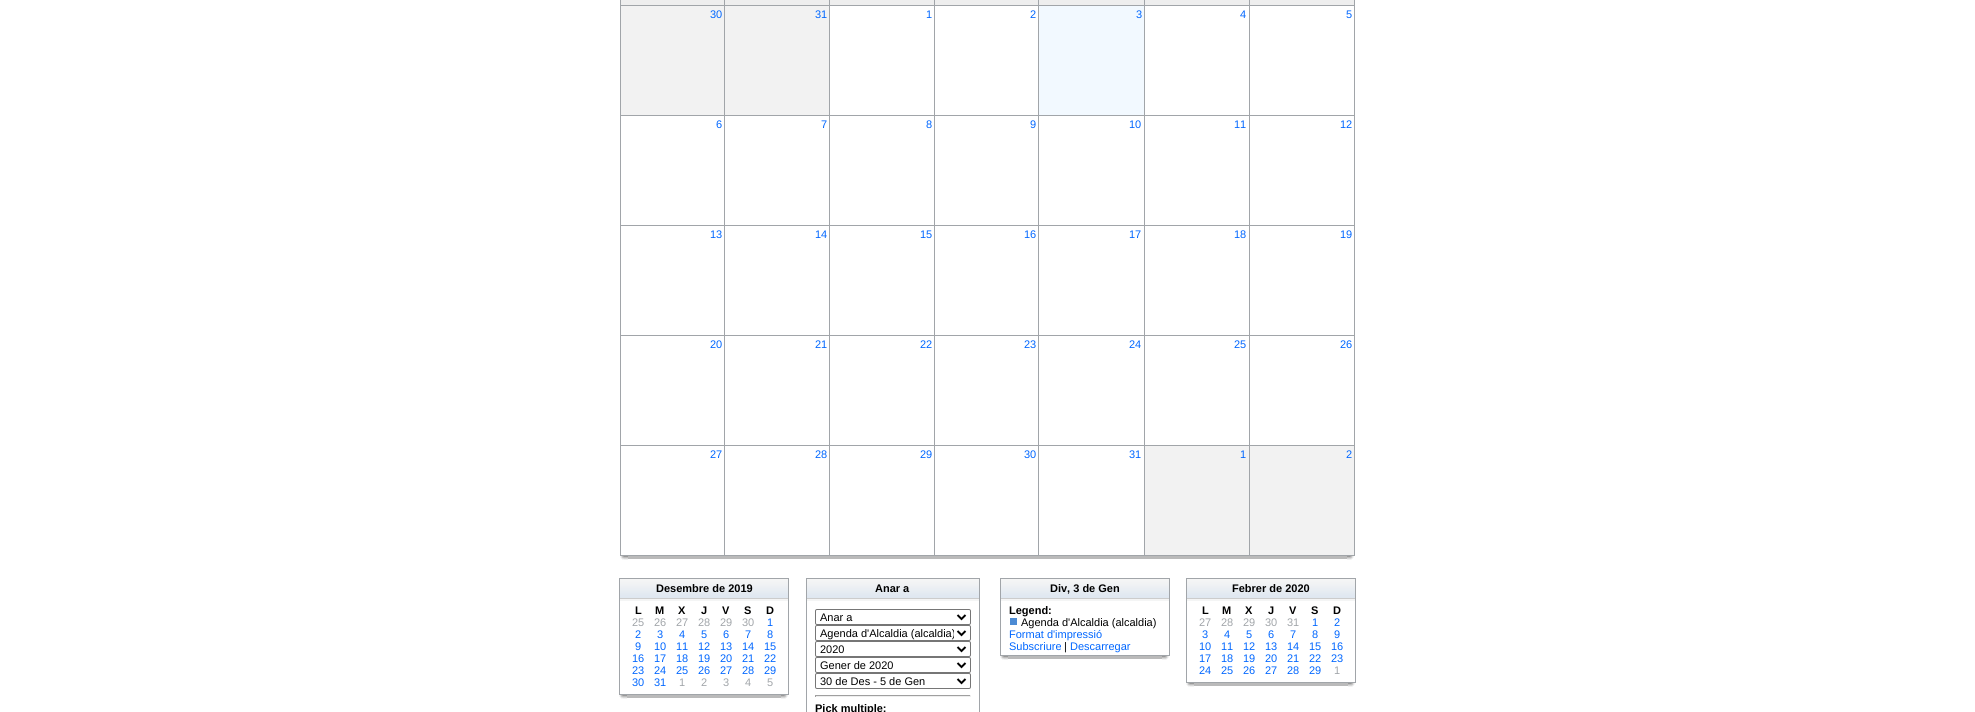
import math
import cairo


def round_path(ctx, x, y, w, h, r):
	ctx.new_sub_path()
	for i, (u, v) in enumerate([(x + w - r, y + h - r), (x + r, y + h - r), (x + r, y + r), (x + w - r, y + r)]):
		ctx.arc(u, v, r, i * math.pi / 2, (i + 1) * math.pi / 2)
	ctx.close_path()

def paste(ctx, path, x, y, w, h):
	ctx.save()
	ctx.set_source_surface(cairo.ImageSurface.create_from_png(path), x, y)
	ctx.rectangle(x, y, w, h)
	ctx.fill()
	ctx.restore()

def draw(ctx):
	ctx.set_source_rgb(1, 1, 1)
	ctx.paint()
	ctx.set_source_rgb(0.631, 0.647, 0.663)
	ctx.rectangle(620, 0, 735, 556)
	ctx.fill()
	ctx.set_source_rgb(0.933, 0.933, 0.933)
	ctx.rectangle(621, 0, 103, 5)
	ctx.rectangle(725, 0, 104, 5)
	ctx.rectangle(830, 0, 104, 5)
	ctx.rectangle(935, 0, 103, 5)
	ctx.rectangle(1039, 0, 105, 5)
	ctx.rectangle(1145, 0, 104, 5)
	ctx.rectangle(1250, 0, 104, 5)
	ctx.fill()
	ctx.set_source_rgb(0.949, 0.949, 0.949)
	ctx.rectangle(621, 6, 103, 109)
	ctx.fill()
	ctx.select_font_face('Liberation Sans')
	ctx.set_font_size(11)
	ctx.set_source_rgb(0, 0.4, 1)
	ctx.move_to(710, 18)
	ctx.show_text('30')
	ctx.set_source_rgb(0.949, 0.949, 0.949)
	ctx.rectangle(725, 6, 104, 109)
	ctx.fill()
	ctx.set_source_rgb(0, 0.4, 1)
	ctx.move_to(815, 18)
	ctx.show_text('31')
	ctx.set_source_rgb(1, 1, 1)
	ctx.rectangle(830, 6, 104, 109)
	ctx.fill()
	ctx.set_source_rgb(0, 0.4, 1)
	ctx.move_to(926, 18)
	ctx.show_text('1')
	ctx.set_source_rgb(1, 1, 1)
	ctx.rectangle(935, 6, 103, 109)
	ctx.fill()
	ctx.set_source_rgb(0, 0.4, 1)
	ctx.move_to(1030, 18)
	ctx.show_text('2')
	ctx.set_source_rgb(0.949, 0.976, 1)
	ctx.rectangle(1039, 6, 105, 109)
	ctx.fill()
	ctx.set_source_rgb(0, 0.4, 1)
	ctx.move_to(1136, 18)
	ctx.show_text('3')
	ctx.set_source_rgb(1, 1, 1)
	ctx.rectangle(1145, 6, 104, 109)
	ctx.fill()
	ctx.set_source_rgb(0, 0.4, 1)
	ctx.move_to(1240, 18)
	ctx.show_text('4')
	ctx.set_source_rgb(1, 1, 1)
	ctx.rectangle(1250, 6, 104, 109)
	ctx.fill()
	ctx.set_source_rgb(0, 0.4, 1)
	ctx.move_to(1346, 18)
	ctx.show_text('5')
	ctx.set_source_rgb(1, 1, 1)
	ctx.rectangle(621, 116, 103, 109)
	ctx.fill()
	ctx.set_source_rgb(0, 0.4, 1)
	ctx.move_to(716, 128)
	ctx.show_text('6')
	ctx.set_source_rgb(1, 1, 1)
	ctx.rectangle(725, 116, 104, 109)
	ctx.fill()
	ctx.set_source_rgb(0, 0.4, 1)
	ctx.move_to(821, 128)
	ctx.show_text('7')
	ctx.set_source_rgb(1, 1, 1)
	ctx.rectangle(830, 116, 104, 109)
	ctx.fill()
	ctx.set_source_rgb(0, 0.4, 1)
	ctx.move_to(926, 128)
	ctx.show_text('8')
	ctx.set_source_rgb(1, 1, 1)
	ctx.rectangle(935, 116, 103, 109)
	ctx.fill()
	ctx.set_source_rgb(0, 0.4, 1)
	ctx.move_to(1030, 128)
	ctx.show_text('9')
	ctx.set_source_rgb(1, 1, 1)
	ctx.rectangle(1039, 116, 105, 109)
	ctx.fill()
	ctx.set_source_rgb(0, 0.4, 1)
	ctx.move_to(1129, 128)
	ctx.show_text('10')
	ctx.set_source_rgb(1, 1, 1)
	ctx.rectangle(1145, 116, 104, 109)
	ctx.fill()
	ctx.set_source_rgb(0, 0.4, 1)
	ctx.move_to(1234, 128)
	ctx.show_text('11')
	ctx.set_source_rgb(1, 1, 1)
	ctx.rectangle(1250, 116, 104, 109)
	ctx.fill()
	ctx.set_source_rgb(0, 0.4, 1)
	ctx.move_to(1340, 128)
	ctx.show_text('12')
	ctx.set_source_rgb(1, 1, 1)
	ctx.rectangle(621, 226, 103, 109)
	ctx.fill()
	ctx.set_source_rgb(0, 0.4, 1)
	ctx.move_to(710, 238)
	ctx.show_text('13')
	ctx.set_source_rgb(1, 1, 1)
	ctx.rectangle(725, 226, 104, 109)
	ctx.fill()
	ctx.set_source_rgb(0, 0.4, 1)
	ctx.move_to(815, 238)
	ctx.show_text('14')
	ctx.set_source_rgb(1, 1, 1)
	ctx.rectangle(830, 226, 104, 109)
	ctx.fill()
	ctx.set_source_rgb(0, 0.4, 1)
	ctx.move_to(920, 238)
	ctx.show_text('15')
	ctx.set_source_rgb(1, 1, 1)
	ctx.rectangle(935, 226, 103, 109)
	ctx.fill()
	ctx.set_source_rgb(0, 0.4, 1)
	ctx.move_to(1024, 238)
	ctx.show_text('16')
	ctx.set_source_rgb(1, 1, 1)
	ctx.rectangle(1039, 226, 105, 109)
	ctx.fill()
	ctx.set_source_rgb(0, 0.4, 1)
	ctx.move_to(1129, 238)
	ctx.show_text('17')
	ctx.set_source_rgb(1, 1, 1)
	ctx.rectangle(1145, 226, 104, 109)
	ctx.fill()
	ctx.set_source_rgb(0, 0.4, 1)
	ctx.move_to(1234, 238)
	ctx.show_text('18')
	ctx.set_source_rgb(1, 1, 1)
	ctx.rectangle(1250, 226, 104, 109)
	ctx.fill()
	ctx.set_source_rgb(0, 0.4, 1)
	ctx.move_to(1340, 238)
	ctx.show_text('19')
	ctx.set_source_rgb(1, 1, 1)
	ctx.rectangle(621, 336, 103, 109)
	ctx.fill()
	ctx.set_source_rgb(0, 0.4, 1)
	ctx.move_to(710, 348)
	ctx.show_text('20')
	ctx.set_source_rgb(1, 1, 1)
	ctx.rectangle(725, 336, 104, 109)
	ctx.fill()
	ctx.set_source_rgb(0, 0.4, 1)
	ctx.move_to(815, 348)
	ctx.show_text('21')
	ctx.set_source_rgb(1, 1, 1)
	ctx.rectangle(830, 336, 104, 109)
	ctx.fill()
	ctx.set_source_rgb(0, 0.4, 1)
	ctx.move_to(920, 348)
	ctx.show_text('22')
	ctx.set_source_rgb(1, 1, 1)
	ctx.rectangle(935, 336, 103, 109)
	ctx.fill()
	ctx.set_source_rgb(0, 0.4, 1)
	ctx.move_to(1024, 348)
	ctx.show_text('23')
	ctx.set_source_rgb(1, 1, 1)
	ctx.rectangle(1039, 336, 105, 109)
	ctx.fill()
	ctx.set_source_rgb(0, 0.4, 1)
	ctx.move_to(1129, 348)
	ctx.show_text('24')
	ctx.set_source_rgb(1, 1, 1)
	ctx.rectangle(1145, 336, 104, 109)
	ctx.fill()
	ctx.set_source_rgb(0, 0.4, 1)
	ctx.move_to(1234, 348)
	ctx.show_text('25')
	ctx.set_source_rgb(1, 1, 1)
	ctx.rectangle(1250, 336, 104, 109)
	ctx.fill()
	ctx.set_source_rgb(0, 0.4, 1)
	ctx.move_to(1340, 348)
	ctx.show_text('26')
	ctx.set_source_rgb(1, 1, 1)
	ctx.rectangle(621, 446, 103, 109)
	ctx.fill()
	ctx.set_source_rgb(0, 0.4, 1)
	ctx.move_to(710, 458)
	ctx.show_text('27')
	ctx.set_source_rgb(1, 1, 1)
	ctx.rectangle(725, 446, 104, 109)
	ctx.fill()
	ctx.set_source_rgb(0, 0.4, 1)
	ctx.move_to(815, 458)
	ctx.show_text('28')
	ctx.set_source_rgb(1, 1, 1)
	ctx.rectangle(830, 446, 104, 109)
	ctx.fill()
	ctx.set_source_rgb(0, 0.4, 1)
	ctx.move_to(920, 458)
	ctx.show_text('29')
	ctx.set_source_rgb(1, 1, 1)
	ctx.rectangle(935, 446, 103, 109)
	ctx.fill()
	ctx.set_source_rgb(0, 0.4, 1)
	ctx.move_to(1024, 458)
	ctx.show_text('30')
	ctx.set_source_rgb(1, 1, 1)
	ctx.rectangle(1039, 446, 105, 109)
	ctx.fill()
	ctx.set_source_rgb(0, 0.4, 1)
	ctx.move_to(1129, 458)
	ctx.show_text('31')
	ctx.set_source_rgb(0.949, 0.949, 0.949)
	ctx.rectangle(1145, 446, 104, 109)
	ctx.fill()
	ctx.set_source_rgb(0, 0.4, 1)
	ctx.move_to(1240, 458)
	ctx.show_text('1')
	ctx.set_source_rgb(0.949, 0.949, 0.949)
	ctx.rectangle(1250, 446, 104, 109)
	ctx.fill()
	ctx.set_source_rgb(0, 0.4, 1)
	ctx.move_to(1346, 458)
	ctx.show_text('2')
	paste(ctx, 'media/1.png', 620, 556, 8, 4)
	ctx.set_source_rgb(0.729, 0.729, 0.729)
	ctx.rectangle(628, 556, 719, 3)
	ctx.fill()
	paste(ctx, 'media/2.png', 1347, 556, 7, 4)
	ctx.rectangle(619.5, 578.5, 169, 116)
	ctx.set_source_rgb(0.631, 0.647, 0.663)
	ctx.set_line_width(1)
	ctx.stroke()
	paste(ctx, 'media/3.png', 620, 579, 168, 22)
	ctx.select_font_face('Liberation Sans', cairo.FONT_SLANT_NORMAL, cairo.FONT_WEIGHT_BOLD)
	ctx.set_source_rgb(0, 0, 0)
	for x, y, s in [
		(656, 592, 'Desembre de 2019'),
		(635, 614, 'L'),
		(655, 614, 'M'),
		(678, 614, 'X'),
		(701, 614, 'J'),
		(722, 614, 'V'),
		(744, 614, 'S'),
		(766, 614, 'D'),
	]:
		ctx.move_to(x, y)
		ctx.show_text(s)
	ctx.select_font_face('Liberation Sans')
	ctx.set_source_rgb(0.631, 0.647, 0.663)
	for x, y, s in [
		(632, 626, '25'),
		(654, 626, '26'),
		(676, 626, '27'),
		(698, 626, '28'),
		(720, 626, '29'),
		(742, 626, '30'),
	]:
		ctx.move_to(x, y)
		ctx.show_text(s)
	ctx.set_source_rgb(0, 0.4, 1)
	for x, y, s in [
		(767, 626, '1'),
		(635, 638, '2'),
		(657, 638, '3'),
		(679, 638, '4'),
		(701, 638, '5'),
		(723, 638, '6'),
		(745, 638, '7'),
		(767, 638, '8'),
		(635, 650, '9'),
		(654, 650, '10'),
		(676, 650, '11'),
		(698, 650, '12'),
		(720, 650, '13'),
		(742, 650, '14'),
		(764, 650, '15'),
		(632, 662, '16'),
		(654, 662, '17'),
		(676, 662, '18'),
		(698, 662, '19'),
		(720, 662, '20'),
		(742, 662, '21'),
		(764, 662, '22'),
		(632, 674, '23'),
		(654, 674, '24'),
		(676, 674, '25'),
		(698, 674, '26'),
		(720, 674, '27'),
		(742, 674, '28'),
		(764, 674, '29'),
		(632, 686, '30'),
		(654, 686, '31'),
	]:
		ctx.move_to(x, y)
		ctx.show_text(s)
	ctx.set_source_rgb(0.631, 0.647, 0.663)
	for x, y, s in [
		(679, 686, '1'),
		(701, 686, '2'),
		(723, 686, '3'),
		(745, 686, '4'),
		(767, 686, '5'),
	]:
		ctx.move_to(x, y)
		ctx.show_text(s)
	paste(ctx, 'media/1.png', 619, 695, 8, 4)
	ctx.set_source_rgb(0.729, 0.729, 0.729)
	ctx.rectangle(627, 695, 154, 3)
	ctx.fill()
	paste(ctx, 'media/2.png', 781, 695, 7, 4)
	ctx.rectangle(806.5, 578.5, 173, 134)
	ctx.set_source_rgb(0.631, 0.647, 0.663)
	ctx.stroke()
	paste(ctx, 'media/4.png', 807, 579, 172, 22)
	ctx.select_font_face('Liberation Sans', cairo.FONT_SLANT_NORMAL, cairo.FONT_WEIGHT_BOLD)
	ctx.set_source_rgb(0, 0, 0)
	ctx.move_to(875, 592)
	ctx.show_text('Anar a')
	round_path(ctx, 815.5, 609.5, 155, 15, 1.5)
	ctx.set_source_rgb(0.463, 0.463, 0.463)
	ctx.stroke()
	ctx.new_path()
	ctx.move_to(957.5, 615)
	ctx.line_to(961.5, 619)
	ctx.line_to(965.5, 615)
	ctx.set_source_rgb(0, 0, 0)
	ctx.set_line_width(2)
	ctx.stroke()
	ctx.select_font_face('Liberation Sans')
	ctx.move_to(820, 621)
	ctx.show_text('Anar a')
	round_path(ctx, 815.5, 625.5, 155, 15, 1.5)
	ctx.set_source_rgb(0.463, 0.463, 0.463)
	ctx.set_line_width(1)
	ctx.stroke()
	ctx.new_path()
	ctx.move_to(957.5, 631)
	ctx.line_to(961.5, 635)
	ctx.line_to(965.5, 631)
	ctx.set_source_rgb(0, 0, 0)
	ctx.set_line_width(2)
	ctx.stroke()
	ctx.save()
	ctx.rectangle(820, 626, 134, 14)
	ctx.clip()
	ctx.move_to(820, 637)
	ctx.show_text('Agenda d\'Alcaldia (alcaldia)')
	ctx.restore()
	round_path(ctx, 815.5, 641.5, 155, 15, 1.5)
	ctx.set_source_rgb(0.463, 0.463, 0.463)
	ctx.set_line_width(1)
	ctx.stroke()
	ctx.new_path()
	ctx.move_to(957.5, 647)
	ctx.line_to(961.5, 651)
	ctx.line_to(965.5, 647)
	ctx.set_source_rgb(0, 0, 0)
	ctx.set_line_width(2)
	ctx.stroke()
	ctx.move_to(820, 653)
	ctx.show_text('2020')
	round_path(ctx, 815.5, 657.5, 155, 15, 1.5)
	ctx.set_source_rgb(0.463, 0.463, 0.463)
	ctx.set_line_width(1)
	ctx.stroke()
	ctx.new_path()
	ctx.move_to(957.5, 663)
	ctx.line_to(961.5, 667)
	ctx.line_to(965.5, 663)
	ctx.set_source_rgb(0, 0, 0)
	ctx.set_line_width(2)
	ctx.stroke()
	ctx.move_to(820, 669)
	ctx.show_text('Gener de 2020')
	round_path(ctx, 815.5, 673.5, 155, 15, 1.5)
	ctx.set_source_rgb(0.463, 0.463, 0.463)
	ctx.set_line_width(1)
	ctx.stroke()
	ctx.new_path()
	ctx.move_to(957.5, 679)
	ctx.line_to(961.5, 683)
	ctx.line_to(965.5, 679)
	ctx.set_source_rgb(0, 0, 0)
	ctx.set_line_width(2)
	ctx.stroke()
	ctx.move_to(820, 685)
	ctx.show_text('30 de Des - 5 de Gen')
	ctx.set_source_rgb(0.624, 0.624, 0.624)
	ctx.rectangle(815, 695, 156, 1)
	ctx.fill()
	ctx.set_source_rgb(0.933, 0.933, 0.933)
	ctx.rectangle(970, 695, 1, 2)
	ctx.rectangle(815, 696, 156, 1)
	ctx.fill()
	ctx.set_source_rgb(0.624, 0.624, 0.624)
	ctx.rectangle(815, 695, 1, 2)
	ctx.fill()
	ctx.select_font_face('Liberation Sans', cairo.FONT_SLANT_NORMAL, cairo.FONT_WEIGHT_BOLD)
	ctx.set_source_rgb(0, 0, 0)
	ctx.move_to(815, 712)
	ctx.show_text('Pick multiple:')
	ctx.rectangle(1000.5, 578.5, 169, 77)
	ctx.set_source_rgb(0.631, 0.647, 0.663)
	ctx.set_line_width(1)
	ctx.stroke()
	paste(ctx, 'media/3.png', 1001, 579, 168, 22)
	ctx.set_source_rgb(0, 0, 0)
	ctx.move_to(1050, 592)
	ctx.show_text('Div, 3 de Gen')
	ctx.move_to(1009, 614)
	ctx.show_text('Legend:')
	ctx.set_source_rgb(0.298, 0.545, 0.831)
	ctx.rectangle(1010, 618, 7, 7)
	ctx.fill()
	ctx.select_font_face('Liberation Sans')
	ctx.set_source_rgb(0, 0, 0)
	ctx.move_to(1021, 626)
	ctx.show_text('Agenda d\'Alcaldia (alcaldia)')
	ctx.set_source_rgb(0, 0.4, 1)
	ctx.move_to(1009, 638)
	ctx.show_text('Format d\'impressió')
	ctx.move_to(1009, 650)
	ctx.show_text('Subscriure')
	ctx.set_source_rgb(0, 0, 0)
	ctx.move_to(1064, 650)
	ctx.show_text('|')
	ctx.set_source_rgb(0, 0.4, 1)
	ctx.move_to(1070, 650)
	ctx.show_text('Descarregar')
	paste(ctx, 'media/1.png', 1000, 656, 8, 4)
	ctx.set_source_rgb(0.729, 0.729, 0.729)
	ctx.rectangle(1008, 656, 154, 3)
	ctx.fill()
	paste(ctx, 'media/2.png', 1162, 656, 7, 4)
	ctx.rectangle(1186.5, 578.5, 169, 104)
	ctx.set_source_rgb(0.631, 0.647, 0.663)
	ctx.stroke()
	paste(ctx, 'media/3.png', 1187, 579, 168, 22)
	ctx.select_font_face('Liberation Sans', cairo.FONT_SLANT_NORMAL, cairo.FONT_WEIGHT_BOLD)
	ctx.set_source_rgb(0, 0, 0)
	for x, y, s in [
		(1232, 592, 'Febrer de 2020'),
		(1202, 614, 'L'),
		(1222, 614, 'M'),
		(1245, 614, 'X'),
		(1268, 614, 'J'),
		(1289, 614, 'V'),
		(1311, 614, 'S'),
		(1333, 614, 'D'),
	]:
		ctx.move_to(x, y)
		ctx.show_text(s)
	ctx.select_font_face('Liberation Sans')
	ctx.set_source_rgb(0.631, 0.647, 0.663)
	for x, y, s in [
		(1199, 626, '27'),
		(1221, 626, '28'),
		(1243, 626, '29'),
		(1265, 626, '30'),
		(1287, 626, '31'),
	]:
		ctx.move_to(x, y)
		ctx.show_text(s)
	ctx.set_source_rgb(0, 0.4, 1)
	for x, y, s in [
		(1312, 626, '1'),
		(1334, 626, '2'),
		(1202, 638, '3'),
		(1224, 638, '4'),
		(1246, 638, '5'),
		(1268, 638, '6'),
		(1290, 638, '7'),
		(1312, 638, '8'),
		(1334, 638, '9'),
		(1199, 650, '10'),
		(1221, 650, '11'),
		(1243, 650, '12'),
		(1265, 650, '13'),
		(1287, 650, '14'),
		(1309, 650, '15'),
		(1331, 650, '16'),
		(1199, 662, '17'),
		(1221, 662, '18'),
		(1243, 662, '19'),
		(1265, 662, '20'),
		(1287, 662, '21'),
		(1309, 662, '22'),
		(1331, 662, '23'),
		(1199, 674, '24'),
		(1221, 674, '25'),
		(1243, 674, '26'),
		(1265, 674, '27'),
		(1287, 674, '28'),
		(1309, 674, '29'),
	]:
		ctx.move_to(x, y)
		ctx.show_text(s)
	ctx.set_source_rgb(0.631, 0.647, 0.663)
	ctx.move_to(1334, 674)
	ctx.show_text('1')
	paste(ctx, 'media/1.png', 1186, 683, 8, 4)
	ctx.set_source_rgb(0.729, 0.729, 0.729)
	ctx.rectangle(1194, 683, 154, 3)
	ctx.fill()
	paste(ctx, 'media/2.png', 1348, 683, 7, 4)


surface = cairo.ImageSurface(cairo.FORMAT_RGB24, 1975, 712)
ctx = cairo.Context(surface)
options = cairo.FontOptions()
options.set_hint_metrics(cairo.HINT_METRICS_OFF)
options.set_hint_style(cairo.HINT_STYLE_NONE)
ctx.set_font_options(options)
ctx.set_miter_limit(4)
draw(ctx)
surface.write_to_png('image.png')
